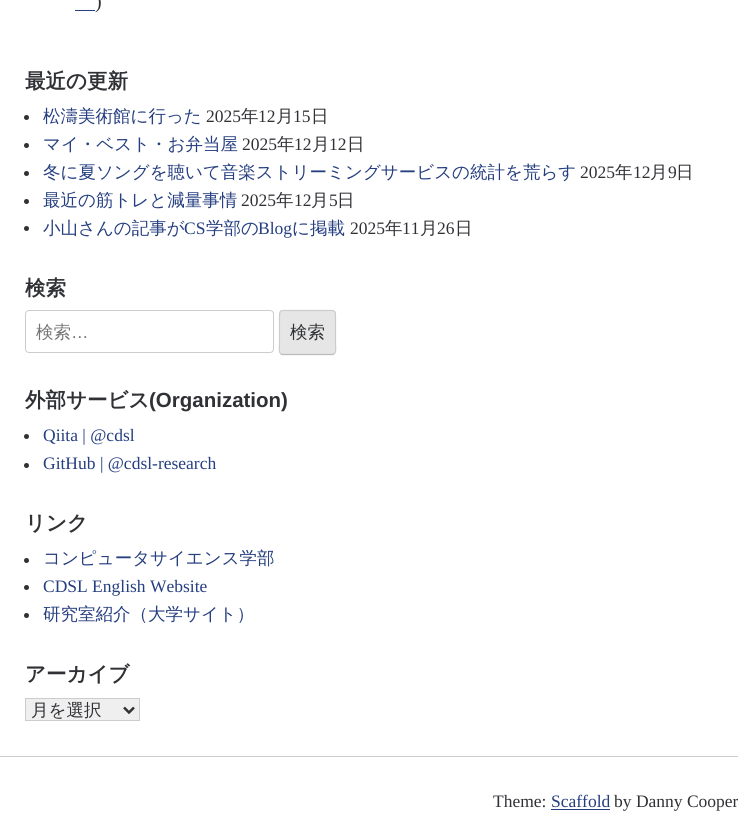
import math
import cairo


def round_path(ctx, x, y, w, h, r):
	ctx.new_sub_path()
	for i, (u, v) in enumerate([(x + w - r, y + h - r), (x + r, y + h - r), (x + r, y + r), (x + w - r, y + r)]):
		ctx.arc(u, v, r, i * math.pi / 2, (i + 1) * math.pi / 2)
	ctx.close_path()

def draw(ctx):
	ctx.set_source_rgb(1, 1, 1)
	ctx.paint()
	ctx.set_source_rgb(0.145, 0.243, 0.502)
	ctx.rectangle(75, 10, 20, 1)
	ctx.fill()
	ctx.select_font_face('Liberation Serif')
	ctx.set_font_size(20)
	ctx.set_source_rgb(0.188, 0.192, 0.208)
	ctx.move_to(95, 8)
	ctx.show_text(')')
	ctx.select_font_face('WenQuanYi Zen Hei', cairo.FONT_SLANT_NORMAL, cairo.FONT_WEIGHT_BOLD)
	ctx.set_font_size(20.5)
	ctx.move_to(25, 88)
	ctx.show_text('最近の更新')
	ctx.new_path()
	ctx.arc(26.5, 117.5, 2.5, 0, 2 * math.pi)
	ctx.fill()
	ctx.select_font_face('WenQuanYi Zen Hei Medium')
	ctx.set_font_size(17.5)
	ctx.set_source_rgb(0.145, 0.243, 0.502)
	ctx.move_to(43, 122)
	ctx.show_text('松濤美術館に行った')
	ctx.select_font_face('Liberation Serif')
	ctx.set_source_rgb(0.188, 0.192, 0.208)
	ctx.move_to(206, 122)
	ctx.show_text('2025')
	ctx.select_font_face('WenQuanYi Zen Hei Medium')
	ctx.move_to(241, 122)
	ctx.show_text('年')
	ctx.select_font_face('Liberation Serif')
	ctx.move_to(258, 122)
	ctx.show_text('12')
	ctx.select_font_face('WenQuanYi Zen Hei Medium')
	ctx.move_to(276, 122)
	ctx.show_text('月')
	ctx.select_font_face('Liberation Serif')
	ctx.move_to(293, 122)
	ctx.show_text('15')
	ctx.select_font_face('WenQuanYi Zen Hei Medium')
	ctx.move_to(311, 122)
	ctx.show_text('日')
	ctx.new_path()
	ctx.arc(26.5, 145.5, 2.5, 0, 2 * math.pi)
	ctx.fill()
	ctx.set_source_rgb(0.145, 0.243, 0.502)
	ctx.move_to(43, 150)
	ctx.show_text('マイ・ベスト・お弁当屋')
	ctx.select_font_face('Liberation Serif')
	ctx.set_source_rgb(0.188, 0.192, 0.208)
	ctx.move_to(242, 150)
	ctx.show_text('2025')
	ctx.select_font_face('WenQuanYi Zen Hei Medium')
	ctx.move_to(277, 150)
	ctx.show_text('年')
	ctx.select_font_face('Liberation Serif')
	ctx.move_to(294, 150)
	ctx.show_text('12')
	ctx.select_font_face('WenQuanYi Zen Hei Medium')
	ctx.move_to(312, 150)
	ctx.show_text('月')
	ctx.select_font_face('Liberation Serif')
	ctx.move_to(329, 150)
	ctx.show_text('12')
	ctx.select_font_face('WenQuanYi Zen Hei Medium')
	ctx.move_to(347, 150)
	ctx.show_text('日')
	ctx.new_path()
	ctx.arc(26.5, 173.5, 2.5, 0, 2 * math.pi)
	ctx.fill()
	ctx.set_source_rgb(0.145, 0.243, 0.502)
	ctx.move_to(43, 178)
	ctx.show_text('冬に夏ソングを聴いて音楽ストリーミングサービスの統計を荒らす')
	ctx.select_font_face('Liberation Serif')
	ctx.set_source_rgb(0.188, 0.192, 0.208)
	ctx.move_to(580, 178)
	ctx.show_text('2025')
	ctx.select_font_face('WenQuanYi Zen Hei Medium')
	ctx.move_to(615, 178)
	ctx.show_text('年')
	ctx.select_font_face('Liberation Serif')
	ctx.move_to(633, 178)
	ctx.show_text('12')
	ctx.select_font_face('WenQuanYi Zen Hei Medium')
	ctx.move_to(650, 178)
	ctx.show_text('月')
	ctx.select_font_face('Liberation Serif')
	ctx.move_to(668, 178)
	ctx.show_text('9')
	ctx.select_font_face('WenQuanYi Zen Hei Medium')
	ctx.move_to(676, 178)
	ctx.show_text('日')
	ctx.new_path()
	ctx.arc(26.5, 201.5, 2.5, 0, 2 * math.pi)
	ctx.fill()
	ctx.set_source_rgb(0.145, 0.243, 0.502)
	ctx.move_to(43, 206)
	ctx.show_text('最近の筋トレと減量事情')
	ctx.select_font_face('Liberation Serif')
	ctx.set_source_rgb(0.188, 0.192, 0.208)
	ctx.move_to(241, 206)
	ctx.show_text('2025')
	ctx.select_font_face('WenQuanYi Zen Hei Medium')
	ctx.move_to(276, 206)
	ctx.show_text('年')
	ctx.select_font_face('Liberation Serif')
	ctx.move_to(294, 206)
	ctx.show_text('12')
	ctx.select_font_face('WenQuanYi Zen Hei Medium')
	ctx.move_to(311, 206)
	ctx.show_text('月')
	ctx.select_font_face('Liberation Serif')
	ctx.move_to(329, 206)
	ctx.show_text('5')
	ctx.select_font_face('WenQuanYi Zen Hei Medium')
	ctx.move_to(337, 206)
	ctx.show_text('日')
	ctx.new_path()
	ctx.arc(26.5, 228.5, 2.5, 0, 2 * math.pi)
	ctx.fill()
	ctx.set_source_rgb(0.145, 0.243, 0.502)
	ctx.move_to(43, 234)
	ctx.show_text('小山さんの記事が')
	ctx.select_font_face('Liberation Serif')
	ctx.move_to(184, 234)
	ctx.show_text('CS')
	ctx.select_font_face('WenQuanYi Zen Hei Medium')
	ctx.move_to(206, 234)
	ctx.show_text('学部の')
	ctx.select_font_face('Liberation Serif')
	ctx.move_to(258, 234)
	ctx.show_text('Blog')
	ctx.select_font_face('WenQuanYi Zen Hei Medium')
	ctx.move_to(292, 234)
	ctx.show_text('に掲載')
	ctx.select_font_face('Liberation Serif')
	ctx.set_source_rgb(0.188, 0.192, 0.208)
	ctx.move_to(350, 234)
	ctx.show_text('2025')
	ctx.select_font_face('WenQuanYi Zen Hei Medium')
	ctx.move_to(385, 234)
	ctx.show_text('年')
	ctx.select_font_face('Liberation Serif')
	ctx.move_to(402, 234)
	ctx.show_text('11')
	ctx.select_font_face('WenQuanYi Zen Hei Medium')
	ctx.move_to(420, 234)
	ctx.show_text('月')
	ctx.select_font_face('Liberation Serif')
	ctx.move_to(437, 234)
	ctx.show_text('26')
	ctx.select_font_face('WenQuanYi Zen Hei Medium')
	ctx.move_to(455, 234)
	ctx.show_text('日')
	ctx.select_font_face('WenQuanYi Zen Hei', cairo.FONT_SLANT_NORMAL, cairo.FONT_WEIGHT_BOLD)
	ctx.set_font_size(20.5)
	ctx.move_to(25, 295)
	ctx.show_text('検索')
	round_path(ctx, 25.5, 310.5, 248, 42, 3.5)
	ctx.set_source_rgb(0.8, 0.8, 0.8)
	ctx.set_line_width(1)
	ctx.stroke()
	ctx.select_font_face('WenQuanYi Zen Hei Medium')
	ctx.set_font_size(17.5)
	ctx.set_source_rgb(0.459, 0.459, 0.459)
	ctx.move_to(36, 338)
	ctx.show_text('検索')
	ctx.select_font_face('Liberation Sans')
	ctx.move_to(71, 338)
	ctx.show_text('…')
	ctx.set_source_rgb(0.902, 0.902, 0.902)
	round_path(ctx, 279, 310, 57, 45, 4)
	ctx.fill()
	ctx.new_path()
	ctx.move_to(334.5, 353.5)
	ctx.line_to(333, 354.5)
	ctx.line_to(282, 354.5)
	ctx.line_to(280.5, 353.5)
	ctx.set_source_rgb(0.733, 0.733, 0.733)
	ctx.set_line_width(1.2)
	ctx.stroke()
	ctx.new_path()
	ctx.move_to(280.5, 353.5)
	ctx.curve_to(278.5, 351.5, 279.5, 346.5, 279.5, 345)
	ctx.line_to(279.5, 320)
	ctx.curve_to(279.5, 309, 279, 310.5, 291, 310.5)
	ctx.line_to(324, 310.5)
	ctx.curve_to(336, 310.5, 335.5, 309, 335.5, 320)
	ctx.line_to(335.5, 345)
	ctx.curve_to(335.5, 346.5, 336.5, 351.5, 334.5, 353.5)
	ctx.set_source_rgb(0.8, 0.8, 0.8)
	ctx.stroke()
	ctx.select_font_face('WenQuanYi Zen Hei Medium')
	ctx.set_source_rgb(0.188, 0.192, 0.208)
	ctx.move_to(290, 338)
	ctx.show_text('検索')
	ctx.select_font_face('WenQuanYi Zen Hei', cairo.FONT_SLANT_NORMAL, cairo.FONT_WEIGHT_BOLD)
	ctx.set_font_size(20.5)
	ctx.move_to(25, 407)
	ctx.show_text('外部サービス')
	ctx.select_font_face('Liberation Sans', cairo.FONT_SLANT_NORMAL, cairo.FONT_WEIGHT_BOLD)
	ctx.move_to(149, 407)
	ctx.show_text('(Organization)')
	ctx.new_path()
	ctx.arc(26.5, 436.5, 2.5, 0, 2 * math.pi)
	ctx.fill()
	ctx.select_font_face('Liberation Serif')
	ctx.set_font_size(17.5)
	ctx.set_source_rgb(0.145, 0.243, 0.502)
	ctx.move_to(43, 441)
	ctx.show_text('Qiita | @cdsl')
	ctx.set_source_rgb(0.188, 0.192, 0.208)
	ctx.new_path()
	ctx.arc(26.5, 465.5, 2.5, 0, 2 * math.pi)
	ctx.fill()
	ctx.set_source_rgb(0.145, 0.243, 0.502)
	ctx.move_to(43, 469)
	ctx.show_text('GitHub | @cdsl-research')
	ctx.select_font_face('WenQuanYi Zen Hei', cairo.FONT_SLANT_NORMAL, cairo.FONT_WEIGHT_BOLD)
	ctx.set_font_size(20.5)
	ctx.set_source_rgb(0.188, 0.192, 0.208)
	ctx.move_to(25, 530)
	ctx.show_text('リンク')
	ctx.new_path()
	ctx.arc(26.5, 560.5, 2.5, 0, 2 * math.pi)
	ctx.fill()
	ctx.select_font_face('WenQuanYi Zen Hei Medium')
	ctx.set_font_size(17.5)
	ctx.set_source_rgb(0.145, 0.243, 0.502)
	ctx.move_to(43, 564)
	ctx.show_text('コンピュータサイエンス学部')
	ctx.set_source_rgb(0.188, 0.192, 0.208)
	ctx.new_path()
	ctx.arc(26.5, 587.5, 2.5, 0, 2 * math.pi)
	ctx.fill()
	ctx.select_font_face('Liberation Serif')
	ctx.set_source_rgb(0.145, 0.243, 0.502)
	ctx.move_to(43, 592)
	ctx.show_text('CDSL English Website')
	ctx.set_source_rgb(0.188, 0.192, 0.208)
	ctx.new_path()
	ctx.arc(26.5, 615.5, 2.5, 0, 2 * math.pi)
	ctx.fill()
	ctx.select_font_face('WenQuanYi Zen Hei Medium')
	ctx.set_source_rgb(0.145, 0.243, 0.502)
	ctx.move_to(43, 620)
	ctx.show_text('研究室紹介（大学サイト）')
	ctx.select_font_face('WenQuanYi Zen Hei', cairo.FONT_SLANT_NORMAL, cairo.FONT_WEIGHT_BOLD)
	ctx.set_font_size(20.5)
	ctx.set_source_rgb(0.188, 0.192, 0.208)
	ctx.move_to(25, 681)
	ctx.show_text('アーカイブ')
	ctx.set_source_rgb(0.937, 0.937, 0.937)
	ctx.rectangle(25.5, 698.5, 114, 22)
	ctx.fill_preserve()
	ctx.set_source_rgb(0.8, 0.8, 0.8)
	ctx.set_line_width(1)
	ctx.stroke()
	ctx.new_path()
	ctx.move_to(124, 707.5)
	ctx.line_to(129, 712.5)
	ctx.line_to(134, 707.5)
	ctx.set_source_rgb(0.188, 0.192, 0.208)
	ctx.set_line_width(2.5)
	ctx.stroke()
	ctx.select_font_face('WenQuanYi Zen Hei Medium')
	ctx.set_font_size(17.5)
	ctx.move_to(31, 716)
	ctx.show_text('月を選択')
	ctx.set_source_rgb(0.8, 0.8, 0.8)
	ctx.rectangle(0, 756, 738, 1)
	ctx.fill()
	ctx.select_font_face('Liberation Serif')
	ctx.set_source_rgb(0.188, 0.192, 0.208)
	ctx.move_to(493, 807)
	ctx.show_text('Theme:')
	ctx.set_source_rgb(0.145, 0.243, 0.502)
	ctx.move_to(551, 807)
	ctx.show_text('Scaffold')
	ctx.rectangle(551, 809, 59, 1)
	ctx.fill()
	ctx.set_source_rgb(0.188, 0.192, 0.208)
	ctx.move_to(614, 807)
	ctx.show_text('by Danny Cooper')


surface = cairo.ImageSurface(cairo.FORMAT_RGB24, 738, 833)
ctx = cairo.Context(surface)
options = cairo.FontOptions()
options.set_hint_metrics(cairo.HINT_METRICS_OFF)
options.set_hint_style(cairo.HINT_STYLE_NONE)
ctx.set_font_options(options)
ctx.set_miter_limit(4)
draw(ctx)
surface.write_to_png('image.png')
